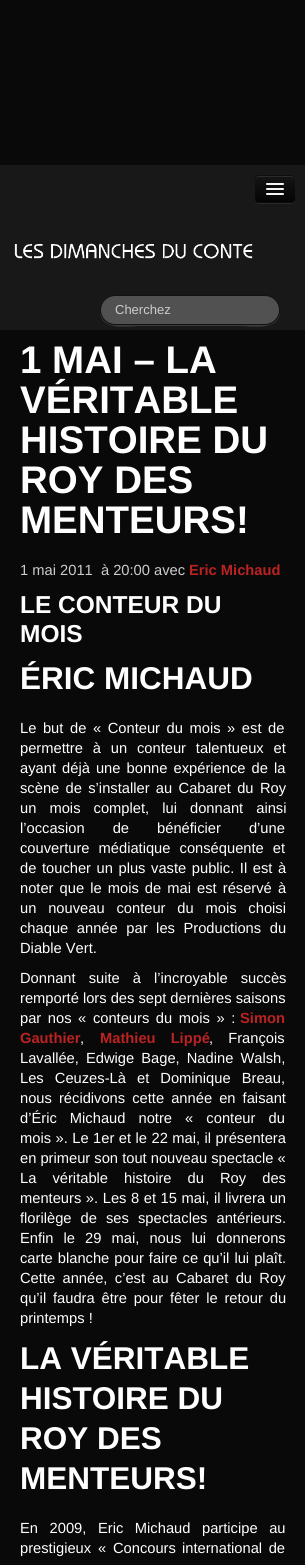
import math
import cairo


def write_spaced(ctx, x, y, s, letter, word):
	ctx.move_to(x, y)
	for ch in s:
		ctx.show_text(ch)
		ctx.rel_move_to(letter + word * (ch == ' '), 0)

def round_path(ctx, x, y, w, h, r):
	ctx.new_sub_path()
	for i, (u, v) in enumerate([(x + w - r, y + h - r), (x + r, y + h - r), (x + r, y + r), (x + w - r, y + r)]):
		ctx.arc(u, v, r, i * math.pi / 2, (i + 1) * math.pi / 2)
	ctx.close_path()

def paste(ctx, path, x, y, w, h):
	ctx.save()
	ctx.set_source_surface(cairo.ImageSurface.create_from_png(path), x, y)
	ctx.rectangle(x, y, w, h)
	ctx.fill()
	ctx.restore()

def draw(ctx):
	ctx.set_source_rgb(0.039, 0.039, 0.039)
	ctx.paint()
	ctx.set_source_rgb(0.094, 0.094, 0.094)
	ctx.rectangle(0, 165, 305, 165)
	ctx.fill()
	ctx.set_source_rgb(0.161, 0.161, 0.161)
	ctx.new_path()
	ctx.move_to(255, 199)
	ctx.curve_to(255, 205, 260, 204, 264, 204)
	ctx.line_to(286, 204)
	ctx.curve_to(290, 204, 295, 205, 295, 199)
	ctx.curve_to(295, 201, 293, 203, 291, 203)
	ctx.line_to(259, 203)
	ctx.curve_to(257, 203, 255, 201, 255, 199)
	ctx.close_path()
	ctx.fill()
	ctx.set_source_rgb(0.055, 0.055, 0.055)
	round_path(ctx, 255, 175, 40, 28, 4)
	ctx.fill()
	ctx.save()
	round_path(ctx, 255, 175, 40, 28, 4)
	ctx.clip()
	gradient = cairo.LinearGradient(275, 176, 275, 202)
	gradient.add_color_stop_rgba(0, 0.082, 0.082, 0.082, 1)
	gradient.add_color_stop_rgba(1, 0.016, 0.016, 0.016, 1)
	ctx.set_source(gradient)
	ctx.rectangle(255, 176, 40, 26)
	ctx.fill()
	ctx.restore()
	ctx.set_source_rgb(0.173, 0.173, 0.173)
	ctx.new_path()
	ctx.move_to(259, 177)
	ctx.line_to(291, 177)
	ctx.curve_to(293, 177, 294, 178, 294, 180)
	ctx.curve_to(294, 175, 290, 176, 285.5, 176)
	ctx.line_to(264.5, 176)
	ctx.curve_to(260, 176, 256, 175, 256, 180)
	ctx.curve_to(256, 178, 257, 177, 259, 177)
	ctx.close_path()
	ctx.fill()
	ctx.new_path()
	ctx.move_to(293.5, 201.5)
	ctx.curve_to(293, 202, 292, 202.5, 291, 202.5)
	ctx.line_to(259, 202.5)
	ctx.curve_to(258, 202.5, 257, 202, 256.5, 201.5)
	ctx.set_source_rgba(0, 0, 0, 0.25)
	ctx.set_line_width(1)
	ctx.stroke()
	ctx.set_source_rgb(0.043, 0.043, 0.043)
	ctx.new_path()
	ctx.move_to(266, 184.5)
	ctx.curve_to(265, 186.5, 269.5, 186, 269.5, 186)
	ctx.line_to(280.5, 186)
	ctx.curve_to(280.5, 186, 285, 186.5, 284, 184.5)
	ctx.curve_to(283, 185.5, 276.5, 185, 275, 185)
	ctx.curve_to(273.5, 185, 267, 185.5, 266, 184.5)
	ctx.close_path()
	ctx.fill()
	ctx.set_source_rgb(0.961, 0.961, 0.961)
	round_path(ctx, 266, 183, 18, 2, 1)
	ctx.fill()
	ctx.set_source_rgb(0.035, 0.035, 0.035)
	ctx.new_path()
	ctx.move_to(266, 189.5)
	ctx.curve_to(265, 191.5, 269.5, 191, 269.5, 191)
	ctx.line_to(280.5, 191)
	ctx.curve_to(280.5, 191, 285, 191.5, 284, 189.5)
	ctx.curve_to(283, 190.5, 276.5, 190, 275, 190)
	ctx.curve_to(273.5, 190, 267, 190.5, 266, 189.5)
	ctx.close_path()
	ctx.fill()
	ctx.set_source_rgb(0.961, 0.961, 0.961)
	round_path(ctx, 266, 188, 18, 2, 1)
	ctx.fill()
	round_path(ctx, 266, 193, 18, 2, 1)
	ctx.fill()
	paste(ctx, 'media/1.png', 14, 243, 239, 16)
	ctx.set_source_rgb(0.231, 0.231, 0.231)
	ctx.new_path()
	ctx.move_to(100, 310)
	ctx.curve_to(99, 332, 129, 326, 140, 326)
	ctx.line_to(240, 326)
	ctx.curve_to(251, 326, 281, 332, 280, 310)
	ctx.curve_to(280, 319, 273, 325, 265, 325)
	ctx.line_to(115, 325)
	ctx.curve_to(107, 325, 100, 319, 100, 310)
	ctx.close_path()
	ctx.fill()
	ctx.set_source_rgb(0.318, 0.318, 0.318)
	round_path(ctx, 100.5, 295.5, 179, 29, 14.5)
	ctx.fill_preserve()
	ctx.set_source_rgb(0.067, 0.067, 0.067)
	ctx.stroke()
	ctx.select_font_face('Liberation Sans')
	ctx.set_font_size(13)
	ctx.set_source_rgb(0.8, 0.8, 0.8)
	ctx.move_to(115, 314)
	ctx.show_text('Cherchez')
	ctx.select_font_face('Liberation Sans', cairo.FONT_SLANT_NORMAL, cairo.FONT_WEIGHT_BOLD)
	ctx.set_font_size(38.5)
	ctx.set_source_rgb(1, 1, 1)
	for x, y, s in [
		(20, 373, '1 MAI – LA'),
		(20, 413, 'VÉRITABLE'),
		(20, 453, 'HISTOIRE DU'),
		(20, 493, 'ROY DES'),
		(20, 533, 'MENTEURS!'),
	]:
		ctx.move_to(x, y)
		ctx.show_text(s)
	ctx.select_font_face('Liberation Sans')
	ctx.set_font_size(14.7)
	ctx.set_source_rgb(0.8, 0.8, 0.8)
	ctx.move_to(20, 575)
	ctx.show_text('1 mai 2011  à 20:00 avec')
	ctx.select_font_face('Liberation Sans', cairo.FONT_SLANT_NORMAL, cairo.FONT_WEIGHT_BOLD)
	ctx.set_source_rgb(0.733, 0.133, 0.133)
	ctx.move_to(189, 575)
	ctx.show_text('Eric Michaud')
	ctx.set_font_size(24.5)
	ctx.set_source_rgb(1, 1, 1)
	ctx.move_to(20, 613)
	ctx.show_text('LE CONTEUR DU')
	ctx.move_to(20, 642)
	ctx.show_text('MOIS')
	ctx.set_font_size(31.5)
	ctx.move_to(20, 689)
	ctx.show_text('ÉRIC MICHAUD')
	ctx.select_font_face('Liberation Sans')
	ctx.set_font_size(14.7)
	write_spaced(ctx, 20, 733, 'Le but de « Conteur du mois » est de', 0, 2.5)
	write_spaced(ctx, 20, 753, 'permettre à un conteur talentueux et', 0, 5.75)
	write_spaced(ctx, 20, 773, 'ayant déjà une bonne expérience de la', 0, 2)
	write_spaced(ctx, 20, 793, 'scène de s’installer au Cabaret du Roy', 0, 2.25)
	write_spaced(ctx, 20, 813, 'un mois complet, lui donnant ainsi', 0, 9)
	write_spaced(ctx, 20, 833, 'l’occasion de bénéficier d’une', 0, 24)
	write_spaced(ctx, 20, 853, 'couverture médiatique conséquente et', 0, 5)
	write_spaced(ctx, 20, 873, 'de toucher un plus vaste public. Il est à', 0, 1.5)
	write_spaced(ctx, 20, 893, 'noter que le mois de mai est réservé à', 0, 2)
	write_spaced(ctx, 20, 913, 'un nouveau conteur du mois choisi', 0, 7.75)
	write_spaced(ctx, 20, 933, 'chaque année par les Productions du', 0, 4.5)
	ctx.move_to(20, 953)
	ctx.show_text('Diable Vert.')
	write_spaced(ctx, 20, 983, 'Donnant suite à l’incroyable succès', 0, 9)
	ctx.move_to(20, 1003)
	ctx.show_text('remporté lors des sept dernières saisons')
	write_spaced(ctx, 20, 1023, 'par nos « conteurs du mois » :', 0, 2.5)
	ctx.select_font_face('Liberation Sans', cairo.FONT_SLANT_NORMAL, cairo.FONT_WEIGHT_BOLD)
	ctx.set_source_rgb(0.733, 0.133, 0.133)
	ctx.move_to(240, 1023)
	ctx.show_text('Simon')
	ctx.move_to(20, 1043)
	ctx.show_text('Gauthier')
	ctx.select_font_face('Liberation Sans')
	ctx.set_source_rgb(1, 1, 1)
	ctx.move_to(80, 1043)
	ctx.show_text(',')
	ctx.select_font_face('Liberation Sans', cairo.FONT_SLANT_NORMAL, cairo.FONT_WEIGHT_BOLD)
	ctx.set_source_rgb(0.733, 0.133, 0.133)
	write_spaced(ctx, 100, 1043, 'Mathieu Lippé', 0, 11)
	ctx.select_font_face('Liberation Sans')
	ctx.set_source_rgb(1, 1, 1)
	write_spaced(ctx, 209, 1043, ', François', 0, 11)
	write_spaced(ctx, 20, 1063, 'Lavallée, Edwige Bage, Nadine Walsh,', 0, 3)
	write_spaced(ctx, 20, 1083, 'Les Ceuzes-Là et Dominique Breau,', 0, 7)
	write_spaced(ctx, 20, 1103, 'nous récidivons cette année en faisant', 0, 3)
	write_spaced(ctx, 20, 1123, 'd’Éric Michaud notre « conteur du', 0, 9)
	write_spaced(ctx, 20, 1143, 'mois ». Le 1er et le 22 mai, il présentera', 0, 0.4)
	ctx.move_to(20, 1163)
	ctx.show_text('en primeur son tout nouveau spectacle «')
	write_spaced(ctx, 20, 1183, 'La véritable histoire du Roy des', 0, 12)
	write_spaced(ctx, 20, 1203, 'menteurs ». Les 8 et 15 mai, il livrera un', 0, 0.5)
	write_spaced(ctx, 20, 1223, 'florilège de ses spectacles antérieurs.', 0, 5)
	write_spaced(ctx, 20, 1243, 'Enfin le 29 mai, nous lui donnerons', 0, 6)
	write_spaced(ctx, 20, 1263, 'carte blanche pour faire ce qu’il lui plaît.', 0, 1)
	write_spaced(ctx, 20, 1283, 'Cette année, c’est au Cabaret du Roy', 0, 3.25)
	write_spaced(ctx, 20, 1303, 'qu’il faudra être pour fêter le retour du', 0, 2.75)
	ctx.move_to(20, 1323)
	ctx.show_text('printemps !')
	ctx.select_font_face('Liberation Sans', cairo.FONT_SLANT_NORMAL, cairo.FONT_WEIGHT_BOLD)
	ctx.set_font_size(31.5)
	for x, y, s in [
		(20, 1369, 'LA VÉRITABLE'),
		(20, 1409, 'HISTOIRE DU'),
		(20, 1449, 'ROY DES'),
		(20, 1489, 'MENTEURS!'),
	]:
		ctx.move_to(x, y)
		ctx.show_text(s)
	ctx.select_font_face('Liberation Sans')
	ctx.set_font_size(14.7)
	write_spaced(ctx, 20, 1533, 'En 2009, Eric Michaud participe au', 0, 7.5)
	write_spaced(ctx, 20, 1553, 'prestigieux « Concours', 0, 2.75)
	write_spaced(ctx, 182, 1553, 'international de', 0, 2.5)


surface = cairo.ImageSurface(cairo.FORMAT_RGB24, 305, 1565)
ctx = cairo.Context(surface)
options = cairo.FontOptions()
options.set_hint_metrics(cairo.HINT_METRICS_OFF)
options.set_hint_style(cairo.HINT_STYLE_NONE)
ctx.set_font_options(options)
ctx.set_miter_limit(4)
draw(ctx)
surface.write_to_png('image.png')
